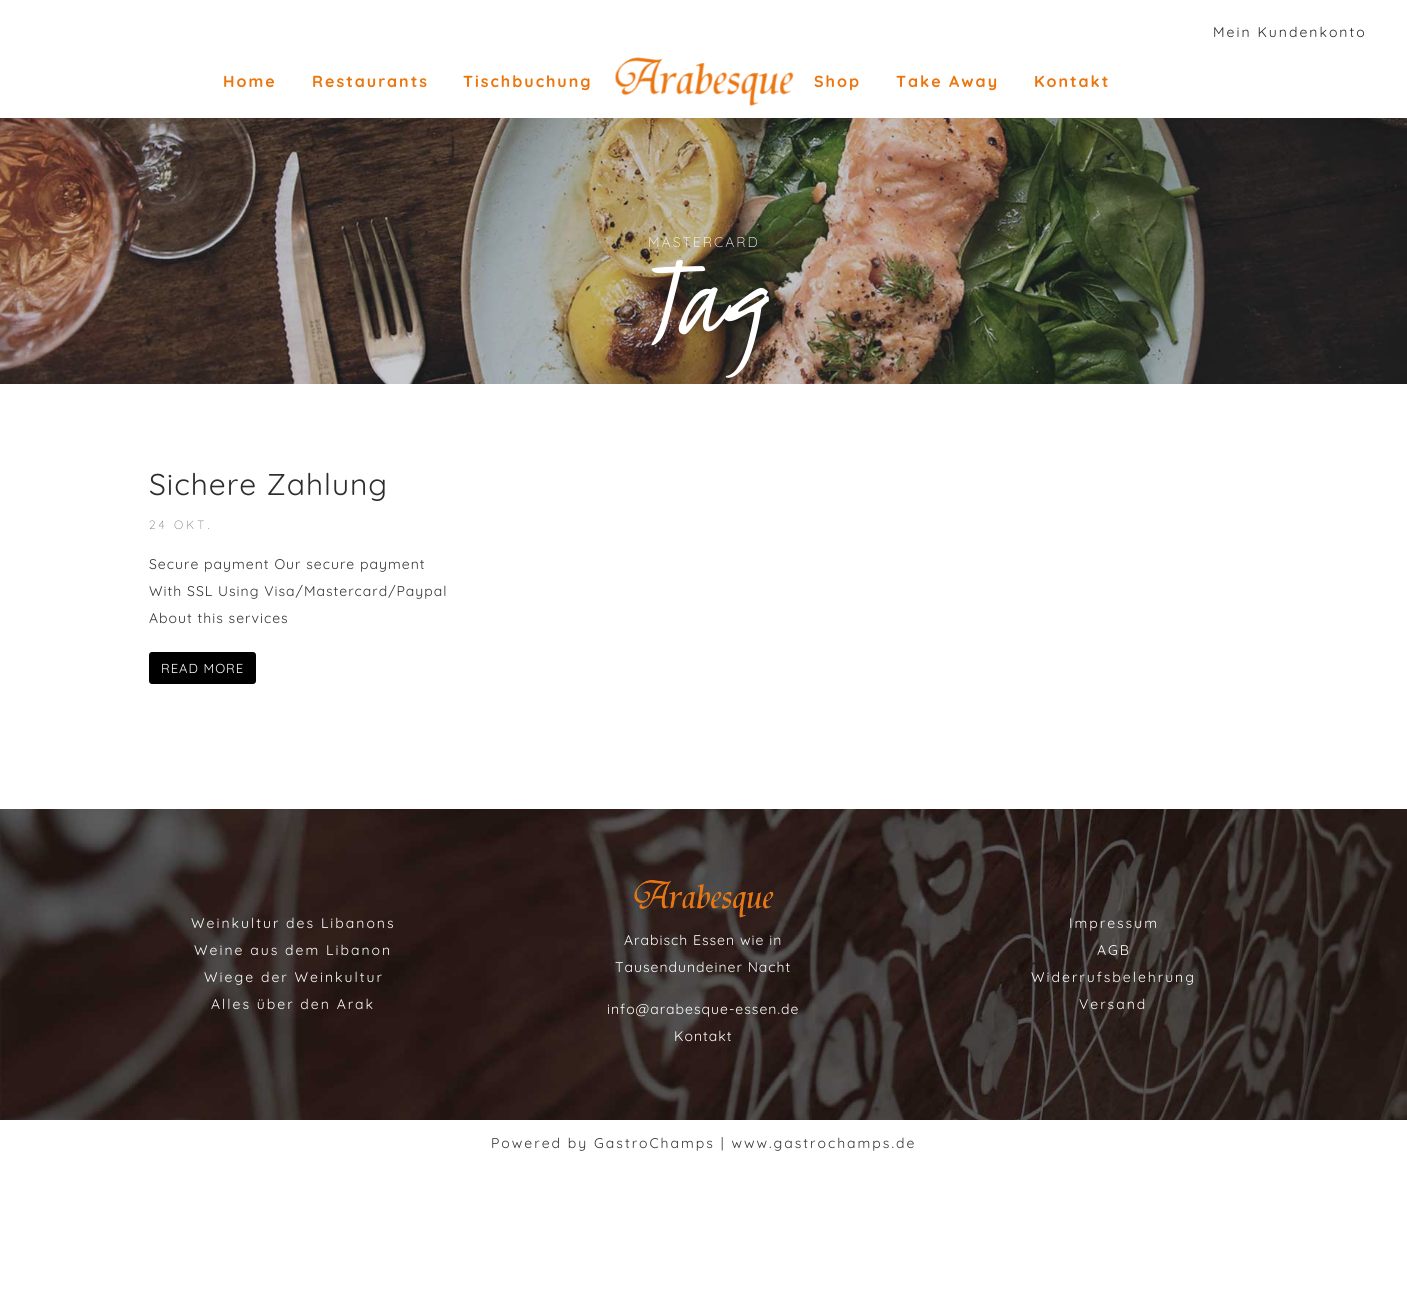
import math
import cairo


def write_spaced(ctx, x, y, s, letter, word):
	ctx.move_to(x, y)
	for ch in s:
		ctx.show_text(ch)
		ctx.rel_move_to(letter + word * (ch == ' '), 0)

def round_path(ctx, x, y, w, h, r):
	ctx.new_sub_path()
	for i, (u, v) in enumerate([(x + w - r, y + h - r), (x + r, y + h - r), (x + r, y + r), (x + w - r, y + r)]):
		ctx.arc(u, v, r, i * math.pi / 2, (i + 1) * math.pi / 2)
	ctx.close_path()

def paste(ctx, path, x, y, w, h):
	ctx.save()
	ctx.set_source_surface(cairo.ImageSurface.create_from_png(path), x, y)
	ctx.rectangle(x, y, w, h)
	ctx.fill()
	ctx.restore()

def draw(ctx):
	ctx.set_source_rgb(1, 1, 1)
	ctx.paint()
	ctx.select_font_face('Quicksand')
	ctx.set_font_size(14)
	ctx.set_source_rgb(0.149, 0.149, 0.149)
	write_spaced(ctx, 1213, 37, 'Mein Kundenkonto', 2, 0)
	ctx.select_font_face('Quicksand', cairo.FONT_SLANT_NORMAL, cairo.FONT_WEIGHT_BOLD)
	ctx.set_font_size(16)
	ctx.set_source_rgb(0.918, 0.463, 0.063)
	for x, y, s in [
		(223, 87, 'Home'),
		(312, 87, 'Restaurants'),
		(463, 87, 'Tischbuchung'),
	]:
		write_spaced(ctx, x, y, s, 2, 0)
	paste(ctx, 'media/1.png', 615, 57, 179, 50)
	for x, y, s in [
		(814, 87, 'Shop'),
		(896, 87, 'Take Away'),
		(1034, 87, 'Kontakt'),
	]:
		write_spaced(ctx, x, y, s, 2, 0)
	paste(ctx, 'media/2.png', 0, 118, 1407, 266)
	ctx.select_font_face('Quicksand Light')
	ctx.set_font_size(14)
	ctx.set_source_rgb(1, 1, 1)
	write_spaced(ctx, 648, 247, 'MASTERCARD', 2, 0)
	ctx.select_font_face('Kristi')
	ctx.set_font_size(120)
	write_spaced(ctx, 644, 332, 'Tag', 1, 0)
	ctx.select_font_face('Quicksand')
	ctx.set_font_size(30)
	ctx.set_source_rgb(0.176, 0.176, 0.176)
	write_spaced(ctx, 149, 495, 'Sichere Zahlung', 1, 0)
	ctx.select_font_face('Quicksand Light')
	ctx.set_font_size(12)
	ctx.set_source_rgb(0.494, 0.494, 0.494)
	write_spaced(ctx, 149, 529, '24 OKT.', 3, 0)
	ctx.select_font_face('Quicksand')
	ctx.set_font_size(14)
	ctx.set_source_rgb(0.2, 0.2, 0.2)
	for x, y, s in [
		(149, 569, 'Secure payment Our secure payment'),
		(149, 596, 'With SSL Using Visa/Mastercard/Paypal'),
		(149, 623, 'About this services'),
	]:
		write_spaced(ctx, x, y, s, 1, 0)
	ctx.set_source_rgb(0, 0, 0)
	round_path(ctx, 149, 652, 107, 32, 3)
	ctx.fill()
	ctx.set_font_size(13)
	ctx.set_source_rgb(1, 1, 1)
	write_spaced(ctx, 161, 673, 'READ MORE', 1, 0)
	paste(ctx, 'media/3.png', 0, 809, 1407, 311)
	ctx.set_font_size(14)
	for x, y, s in [
		(191, 928, 'Weinkultur des Libanons'),
		(194, 955, 'Weine aus dem Libanon'),
		(204, 982, 'Wiege der Weinkultur'),
		(211, 1009, 'Alles über den Arak'),
	]:
		write_spaced(ctx, x, y, s, 2, 0)
	paste(ctx, 'media/4.png', 634, 880, 140, 38)
	for x, y, s in [
		(624, 945, 'Arabisch Essen wie in'),
		(615, 972, 'Tausendundeiner Nacht'),
		(607, 1014, 'info@arabesque-essen.de'),
		(674, 1041, 'Kontakt'),
	]:
		write_spaced(ctx, x, y, s, 1, 0)
	for x, y, s in [
		(1069, 928, 'Impressum'),
		(1097, 955, 'AGB'),
		(1031, 982, 'Widerrufsbelehrung'),
		(1079, 1009, 'Versand'),
	]:
		write_spaced(ctx, x, y, s, 2, 0)
	ctx.set_source_rgb(0.2, 0.2, 0.2)
	write_spaced(ctx, 491, 1148, 'Powered by GastroChamps | www.gastrochamps.de', 2, 0)


surface = cairo.ImageSurface(cairo.FORMAT_RGB24, 1407, 1300)
ctx = cairo.Context(surface)
options = cairo.FontOptions()
options.set_hint_metrics(cairo.HINT_METRICS_OFF)
options.set_hint_style(cairo.HINT_STYLE_NONE)
ctx.set_font_options(options)
ctx.set_miter_limit(4)
draw(ctx)
surface.write_to_png('image.png')
